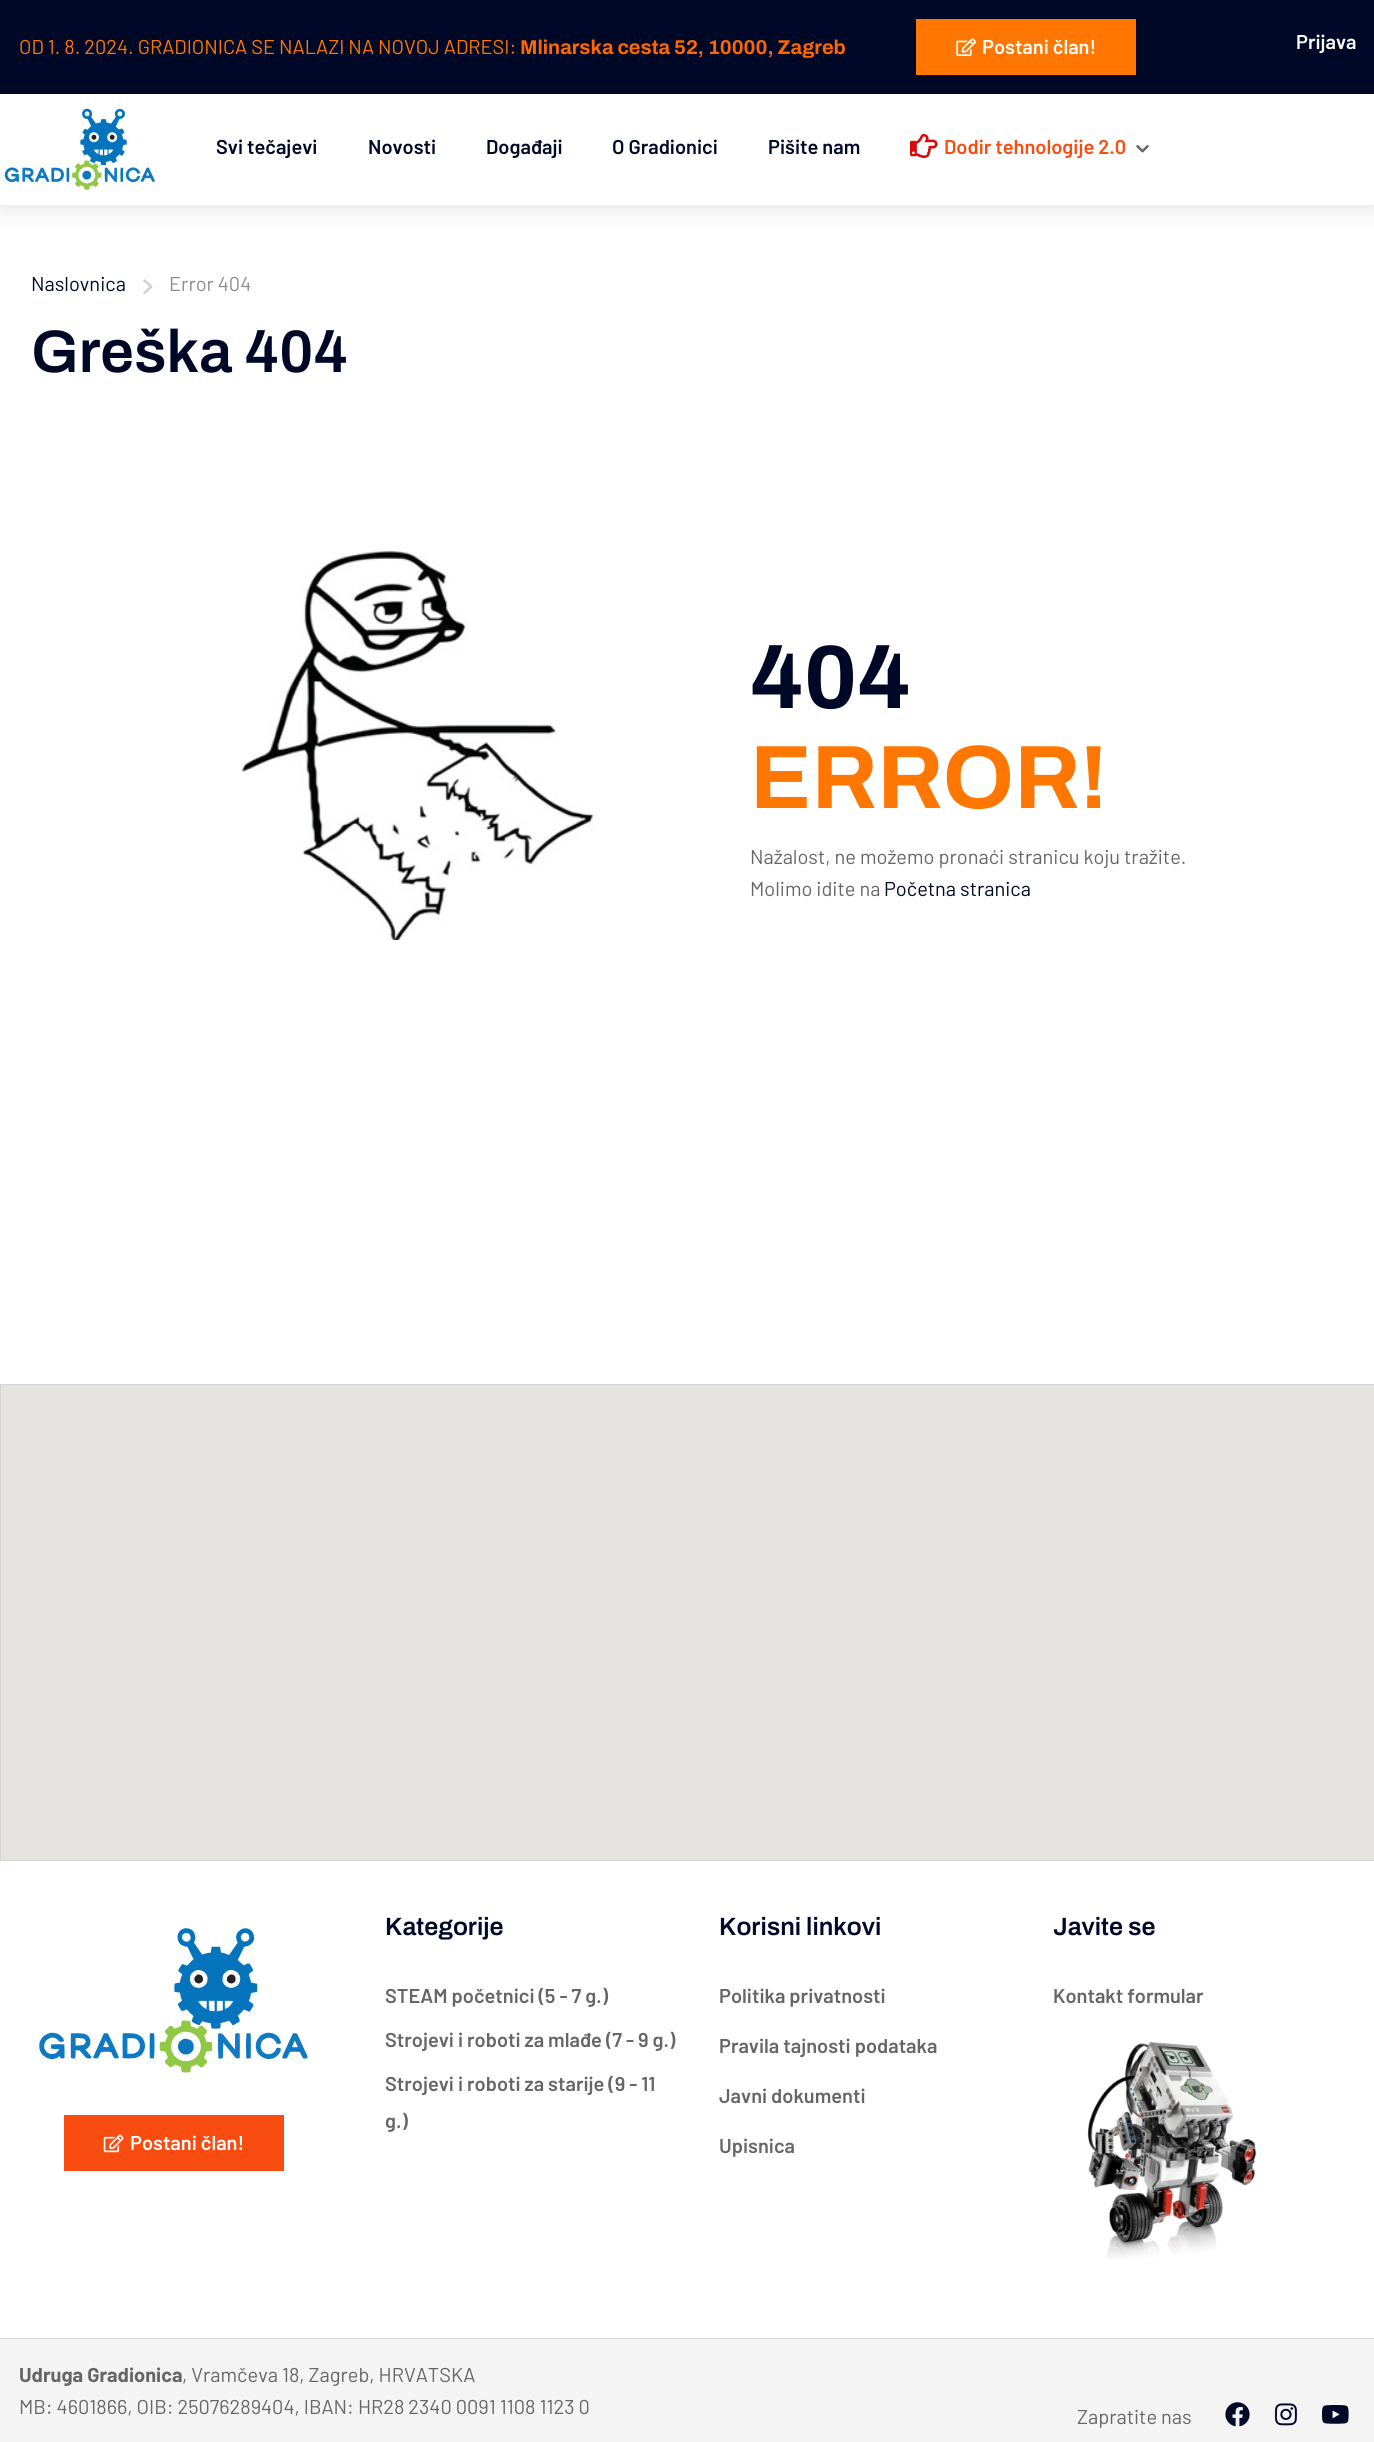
import math
import cairo


def round_path(ctx, x, y, w, h, r):
	ctx.new_sub_path()
	for i, (u, v) in enumerate([(x + w - r, y + h - r), (x + r, y + h - r), (x + r, y + r), (x + w - r, y + r)]):
		ctx.arc(u, v, r, i * math.pi / 2, (i + 1) * math.pi / 2)
	ctx.close_path()

def blur_box(ctx, x, y, w, h, r, blur, alpha):
	ctx.push_group_with_content(cairo.CONTENT_ALPHA)
	ctx.set_operator(cairo.OPERATOR_SOURCE)
	for i in range(15, -16, -2):
		e = blur * i / 6
		if min(w, h) + 2 * e > 0:
			ctx.set_source_rgba(0, 0, 0, alpha * math.erfc((i - 1) / 8.5) / 2)
			round_path(ctx, x - e, y - e, w + 2 * e, h + 2 * e, max(0, min(r + e + blur * .6, min(w, h) / 2 + e)))
			ctx.fill()
	ctx.mask(ctx.pop_group())

def paste(ctx, path, x, y, w, h):
	ctx.save()
	ctx.set_source_surface(cairo.ImageSurface.create_from_png(path), x, y)
	ctx.rectangle(x, y, w, h)
	ctx.fill()
	ctx.restore()

def draw(ctx):
	ctx.set_source_rgb(1, 1, 1)
	ctx.paint()
	ctx.set_source_rgb(0, 0.035, 0.153)
	ctx.rectangle(0, 0, 1374, 94)
	ctx.fill()
	ctx.select_font_face('Barlow')
	ctx.set_font_size(20)
	ctx.set_source_rgb(1, 0.467, 0)
	ctx.move_to(19, 54)
	ctx.show_text('OD 1. 8. 2024. GRADIONICA SE NALAZI NA NOVOJ ADRESI:')
	ctx.select_font_face('Archivo', cairo.FONT_SLANT_NORMAL, cairo.FONT_WEIGHT_BOLD)
	ctx.set_source_rgb(1, 0.4, 0)
	ctx.move_to(520, 54)
	ctx.show_text('Mlinarska cesta 52, 10000, Zagreb')
	ctx.set_source_rgb(1, 0.467, 0)
	ctx.rectangle(916, 19, 220, 56)
	ctx.fill()
	paste(ctx, 'media/1.png', 956, 38, 20, 18)
	ctx.select_font_face('Barlow SemiBold')
	ctx.set_source_rgb(1, 1, 1)
	ctx.move_to(982, 54)
	ctx.show_text('Postani član!')
	ctx.move_to(1296, 49)
	ctx.show_text('Prijava')
	ctx.save()
	ctx.set_fill_rule(cairo.FILL_RULE_EVEN_ODD)
	ctx.new_path()
	ctx.move_to(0, 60)
	ctx.line_to(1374, 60)
	ctx.line_to(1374, 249)
	ctx.line_to(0, 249)
	ctx.close_path()
	ctx.move_to(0, 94)
	ctx.line_to(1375, 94)
	ctx.line_to(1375, 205)
	ctx.line_to(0, 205)
	ctx.close_path()
	ctx.clip()
	ctx.set_source_rgb(0, 0, 0)
	blur_box(ctx, 0, 99, 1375, 111, 0, 12.5, 0.1)
	ctx.restore()
	paste(ctx, 'media/2.png', 4, 108, 151, 82)
	ctx.set_source_rgb(0, 0.035, 0.153)
	for x, y, s in [
		(216, 154, 'Svi tečajevi'),
		(368, 154, 'Novosti'),
		(486, 154, 'Događaji'),
		(612, 154, 'O Gradionici'),
		(768, 154, 'Pišite nam'),
	]:
		ctx.move_to(x, y)
		ctx.show_text(s)
	paste(ctx, 'media/3.png', 910, 133, 28, 25)
	ctx.set_source_rgb(0.976, 0.298, 0.063)
	ctx.move_to(944, 154)
	ctx.show_text('Dodir tehnologije 2.0')
	paste(ctx, 'media/4.png', 1136, 145, 13, 8)
	ctx.select_font_face('Barlow')
	ctx.set_source_rgb(0, 0.035, 0.153)
	ctx.move_to(31, 291)
	ctx.show_text('Naslovnica')
	paste(ctx, 'media/5.png', 143, 279, 10, 15)
	ctx.set_source_rgb(0.553, 0.553, 0.553)
	ctx.move_to(169, 291)
	ctx.show_text('Error 404')
	ctx.select_font_face('Archivo SemiBold')
	ctx.set_font_size(60)
	ctx.set_source_rgb(0, 0.035, 0.153)
	ctx.move_to(31, 372)
	ctx.show_text('Greška 404')
	paste(ctx, 'media/6.png', 241, 550, 358, 390)
	ctx.select_font_face('Archivo', cairo.FONT_SLANT_NORMAL, cairo.FONT_WEIGHT_BOLD)
	ctx.set_font_size(90)
	ctx.move_to(750, 708)
	ctx.show_text('404')
	ctx.set_source_rgb(1, 0.467, 0)
	ctx.move_to(750, 808)
	ctx.show_text('ERROR!')
	ctx.select_font_face('Barlow')
	ctx.set_font_size(20)
	ctx.set_source_rgb(0.4, 0.4, 0.4)
	ctx.move_to(750, 864)
	ctx.show_text('Nažalost, ne možemo pronaći stranicu koju tražite.')
	ctx.move_to(750, 896)
	ctx.show_text('Molimo idite na')
	ctx.set_source_rgb(0, 0.035, 0.153)
	ctx.move_to(884, 896)
	ctx.show_text('Početna stranica')
	ctx.rectangle(0.5, 1384.5, 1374, 476)
	ctx.set_source_rgb(0.831, 0.831, 0.831)
	ctx.set_line_width(1)
	ctx.stroke()
	ctx.set_source_rgb(0.898, 0.89, 0.875)
	ctx.rectangle(1, 1385, 1373, 475)
	ctx.fill()
	ctx.select_font_face('Archivo SemiBold')
	ctx.set_font_size(25)
	ctx.set_source_rgb(0, 0.035, 0.153)
	ctx.move_to(385, 1935)
	ctx.show_text('Kategorije')
	ctx.select_font_face('Barlow SemiBold')
	ctx.set_font_size(20)
	ctx.set_source_rgb(0.4, 0.4, 0.4)
	for x, y, s in [
		(385, 2003, 'STEAM početnici (5 - 7 g.)'),
		(385, 2047, 'Strojevi i roboti za mlađe (7 - 9 g.)'),
		(385, 2091, 'Strojevi i roboti za starije (9 - 11'),
		(385, 2128, 'g.)'),
	]:
		ctx.move_to(x, y)
		ctx.show_text(s)
	ctx.select_font_face('Archivo SemiBold')
	ctx.set_font_size(25)
	ctx.set_source_rgb(0, 0.035, 0.153)
	ctx.move_to(719, 1935)
	ctx.show_text('Korisni linkovi')
	ctx.select_font_face('Barlow SemiBold')
	ctx.set_font_size(20)
	ctx.set_source_rgb(0.4, 0.4, 0.4)
	for x, y, s in [
		(719, 2003, 'Politika privatnosti'),
		(719, 2053, 'Pravila tajnosti podataka'),
		(719, 2103, 'Javni dokumenti'),
		(719, 2153, 'Upisnica'),
	]:
		ctx.move_to(x, y)
		ctx.show_text(s)
	ctx.select_font_face('Archivo SemiBold')
	ctx.set_font_size(25)
	ctx.set_source_rgb(0, 0.035, 0.153)
	ctx.move_to(1053, 1935)
	ctx.show_text('Javite se')
	ctx.select_font_face('Barlow SemiBold')
	ctx.set_font_size(20)
	ctx.set_source_rgb(0.4, 0.4, 0.4)
	ctx.move_to(1053, 2003)
	ctx.show_text('Kontakt formular')
	paste(ctx, 'media/7.png', 1087, 2041, 170, 218)
	paste(ctx, 'media/8.png', 39, 1928, 269, 145)
	ctx.set_source_rgb(0.976, 0.298, 0.063)
	ctx.rectangle(64, 2115, 220, 56)
	ctx.fill()
	paste(ctx, 'media/9.png', 103, 2134, 21, 19)
	ctx.set_source_rgb(1, 1, 1)
	ctx.move_to(130, 2150)
	ctx.show_text('Postani član!')
	ctx.set_source_rgb(0.855, 0.855, 0.855)
	ctx.rectangle(0, 2338, 1374, 1)
	ctx.fill()
	ctx.set_source_rgb(0.957, 0.957, 0.957)
	ctx.rectangle(0, 2339, 1374, 103)
	ctx.fill()
	ctx.select_font_face('Barlow', cairo.FONT_SLANT_NORMAL, cairo.FONT_WEIGHT_BOLD)
	ctx.set_source_rgb(0.4, 0.4, 0.4)
	ctx.move_to(19, 2382)
	ctx.show_text('Udruga Gradionica')
	ctx.select_font_face('Barlow')
	for x, y, s in [
		(182, 2382, ', Vramčeva 18, Zagreb, HRVATSKA'),
		(19, 2414, 'MB: 4601866, OIB: 25076289404, IBAN: HR28 2340 0091 1108 1123 0'),
		(1077, 2424, 'Zapratite nas'),
	]:
		ctx.move_to(x, y)
		ctx.show_text(s)
	paste(ctx, 'media/10.png', 1225, 2402, 25, 25)
	paste(ctx, 'media/11.png', 1275, 2403, 22, 23)
	paste(ctx, 'media/12.png', 1322, 2405, 27, 19)


surface = cairo.ImageSurface(cairo.FORMAT_RGB24, 1374, 2442)
ctx = cairo.Context(surface)
options = cairo.FontOptions()
options.set_hint_metrics(cairo.HINT_METRICS_OFF)
options.set_hint_style(cairo.HINT_STYLE_NONE)
ctx.set_font_options(options)
ctx.set_miter_limit(4)
draw(ctx)
surface.write_to_png('image.png')
